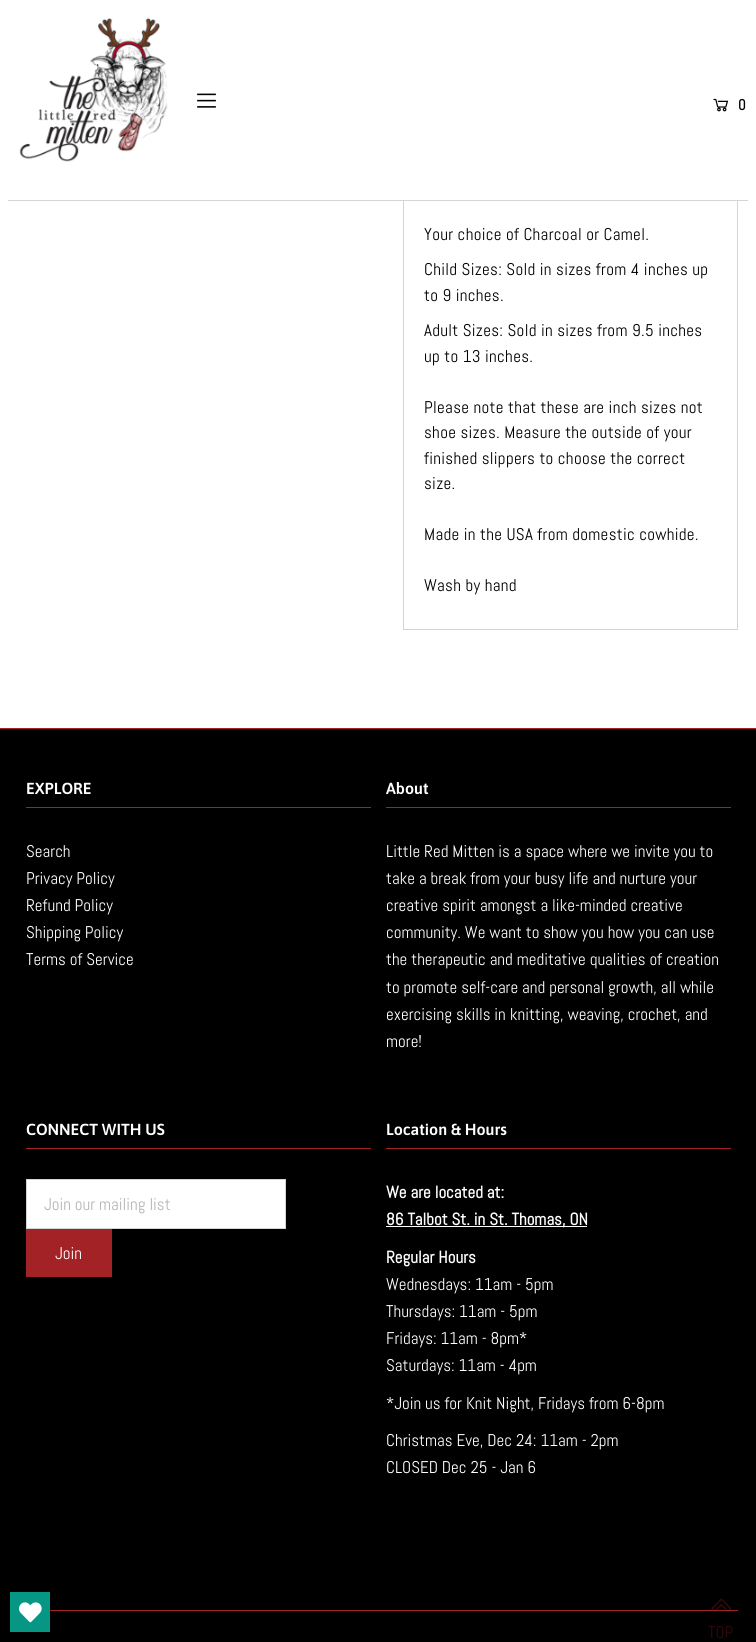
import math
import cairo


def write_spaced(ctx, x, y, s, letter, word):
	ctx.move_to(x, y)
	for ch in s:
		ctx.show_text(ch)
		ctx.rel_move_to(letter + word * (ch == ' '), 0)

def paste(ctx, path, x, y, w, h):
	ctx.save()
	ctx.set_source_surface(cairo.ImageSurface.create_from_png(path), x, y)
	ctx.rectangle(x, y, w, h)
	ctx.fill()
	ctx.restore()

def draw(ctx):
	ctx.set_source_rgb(1, 1, 1)
	ctx.paint()
	ctx.rectangle(403.5, -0.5, 334, 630)
	ctx.set_source_rgb(0.835, 0.835, 0.835)
	ctx.set_line_width(1)
	ctx.stroke()
	ctx.set_source_rgb(1, 1, 1)
	ctx.rectangle(403, 0, 335, 201)
	ctx.fill()
	ctx.set_source_rgb(0.835, 0.835, 0.835)
	ctx.rectangle(8, 200, 740, 1)
	ctx.fill()
	paste(ctx, 'media/1.png', 19, 18, 149, 144)
	paste(ctx, 'media/2.png', 197, 93, 19, 15)
	paste(ctx, 'media/3.png', 713, 98, 16, 14)
	ctx.select_font_face('Abel', cairo.FONT_SLANT_NORMAL, cairo.FONT_WEIGHT_BOLD)
	ctx.set_font_size(15)
	ctx.set_source_rgb(0, 0, 0)
	ctx.move_to(738, 110)
	ctx.show_text('0')
	ctx.select_font_face('Abel')
	ctx.set_font_size(17)
	for x, y, s in [
		(424, 240, 'Your choice of Charcoal or Camel.'),
		(424, 275, 'Child Sizes: Sold in sizes from 4 inches up'),
		(424, 301, 'to 9 inches.'),
		(424, 336, 'Adult Sizes: Sold in sizes from 9.5 inches'),
		(424, 362, 'up to 13 inches.'),
		(424, 413, 'Please note that these are inch sizes not'),
		(424, 438, 'shoe sizes. Measure the outside of your'),
		(424, 464, 'finished slippers to choose the correct'),
		(424, 489, 'size.'),
		(424, 540, 'Made in the USA from domestic cowhide.'),
		(424, 591, 'Wash by hand'),
	]:
		write_spaced(ctx, x, y, s, 0.3, 0)
	ctx.rectangle(0, 729, 756, 913)
	ctx.fill()
	ctx.set_source_rgb(0.639, 0.133, 0.149)
	ctx.rectangle(0, 728, 756, 1)
	ctx.rectangle(26, 807, 345, 1)
	ctx.fill()
	ctx.select_font_face('Asap SemiBold')
	ctx.set_font_size(16)
	ctx.set_source_rgb(1, 1, 1)
	ctx.move_to(26, 794)
	ctx.show_text('EXPLORE')
	ctx.select_font_face('Abel')
	ctx.set_font_size(17)
	for x, y, s in [
		(26, 857, 'Search'),
		(26, 884, 'Privacy Policy'),
		(26, 911, 'Refund Policy'),
		(26, 938, 'Shipping Policy'),
		(26, 965, 'Terms of Service'),
	]:
		ctx.move_to(x, y)
		ctx.show_text(s)
	ctx.set_source_rgb(0.639, 0.133, 0.149)
	ctx.rectangle(386, 807, 345, 1)
	ctx.fill()
	ctx.select_font_face('Asap SemiBold')
	ctx.set_font_size(16)
	ctx.set_source_rgb(1, 1, 1)
	ctx.move_to(386, 794)
	ctx.show_text('About')
	ctx.select_font_face('Abel')
	ctx.set_font_size(17)
	for x, y, s in [
		(386, 857, 'Little Red Mitten is a space where we invite you to'),
		(386, 884, 'take a break from your busy life and nurture your'),
		(386, 911, 'creative spirit amongst a like-minded creative'),
		(386, 938, 'community. We want to show you how you can use'),
		(386, 965, 'the therapeutic and meditative qualities of creation'),
		(386, 993, 'to promote self-care and personal growth, all while'),
		(386, 1020, 'exercising skills in knitting, weaving, crochet, and'),
		(386, 1047, 'more!'),
	]:
		ctx.move_to(x, y)
		ctx.show_text(s)
	ctx.set_source_rgb(0.639, 0.133, 0.149)
	ctx.rectangle(26, 1148, 345, 1)
	ctx.fill()
	ctx.select_font_face('Asap SemiBold')
	ctx.set_font_size(16)
	ctx.set_source_rgb(1, 1, 1)
	ctx.move_to(26, 1135)
	ctx.show_text('CONNECT WITH US')
	ctx.rectangle(26.5, 1179.5, 259, 49)
	ctx.fill_preserve()
	ctx.set_source_rgb(0.835, 0.835, 0.835)
	ctx.stroke()
	ctx.select_font_face('Abel')
	ctx.set_font_size(17)
	ctx.set_source_rgb(0.71, 0.71, 0.71)
	ctx.move_to(44, 1210)
	ctx.show_text('Join our mailing list')
	ctx.set_source_rgb(0.639, 0.133, 0.149)
	ctx.rectangle(26, 1229, 86, 48)
	ctx.fill()
	ctx.set_source_rgb(1, 1, 1)
	ctx.move_to(55, 1259)
	ctx.show_text('Join')
	ctx.set_source_rgb(0.639, 0.133, 0.149)
	ctx.rectangle(386, 1148, 345, 1)
	ctx.fill()
	ctx.select_font_face('Asap SemiBold')
	ctx.set_font_size(16)
	ctx.set_source_rgb(1, 1, 1)
	ctx.move_to(386, 1135)
	ctx.show_text('Location & Hours')
	ctx.select_font_face('Abel', cairo.FONT_SLANT_NORMAL, cairo.FONT_WEIGHT_BOLD)
	ctx.set_font_size(17)
	ctx.move_to(386, 1198)
	ctx.show_text('We are located at:')
	ctx.rectangle(386, 1226, 201, 1)
	ctx.fill()
	ctx.move_to(386, 1225)
	ctx.show_text('86 Talbot St. in St. Thomas, ON')
	ctx.move_to(386, 1263)
	ctx.show_text('Regular Hours')
	ctx.select_font_face('Abel')
	for x, y, s in [
		(386, 1290, 'Wednesdays: 11am - 5pm'),
		(386, 1317, 'Thursdays: 11am - 5pm'),
		(386, 1344, 'Fridays: 11am - 8pm*'),
		(386, 1371, 'Saturdays: 11am - 4pm'),
		(386, 1409, '*Join us for Knit Night, Fridays from 6-8pm'),
		(386, 1446, 'Christmas Eve, Dec 24: 11am - 2pm'),
		(386, 1473, 'CLOSED Dec 25 - Jan 6'),
	]:
		ctx.move_to(x, y)
		ctx.show_text(s)
	ctx.set_source_rgb(0.639, 0.133, 0.149)
	ctx.rectangle(50, 1610, 688, 1)
	ctx.fill()
	ctx.set_source_rgb(0.027, 0.592, 0.518)
	ctx.rectangle(10, 1592, 40, 40)
	ctx.fill()
	paste(ctx, 'media/4.png', 19, 1602, 23, 21)
	paste(ctx, 'media/5.png', 711, 1598, 21, 14)
	ctx.set_source_rgb(0.192, 0.039, 0.043)
	ctx.move_to(708, 1638)
	ctx.show_text('TOP')


surface = cairo.ImageSurface(cairo.FORMAT_RGB24, 756, 1642)
ctx = cairo.Context(surface)
options = cairo.FontOptions()
options.set_hint_metrics(cairo.HINT_METRICS_OFF)
options.set_hint_style(cairo.HINT_STYLE_NONE)
ctx.set_font_options(options)
ctx.set_miter_limit(4)
draw(ctx)
surface.write_to_png('image.png')
